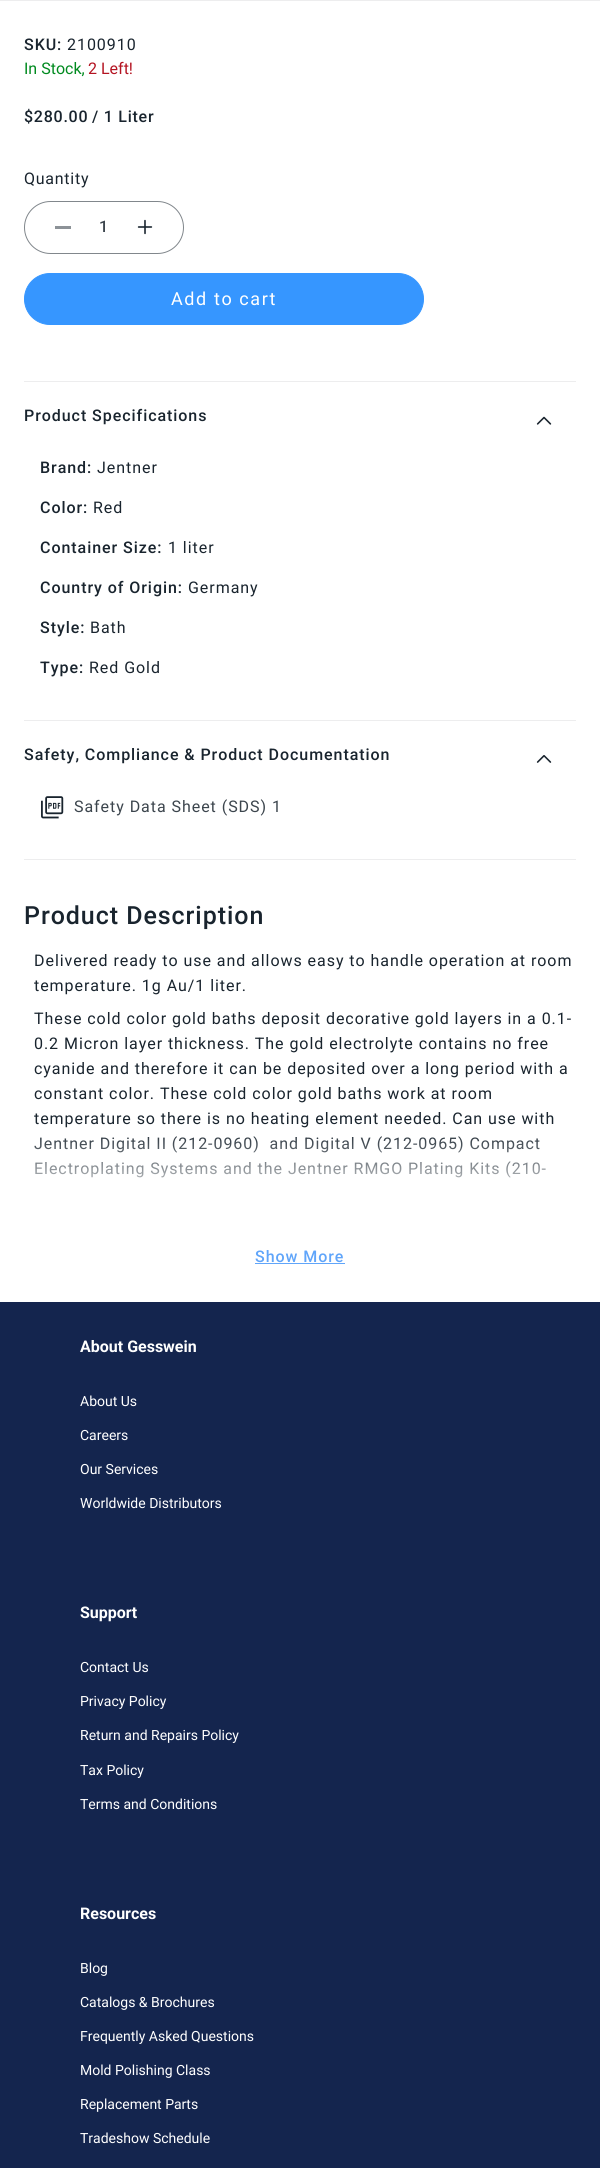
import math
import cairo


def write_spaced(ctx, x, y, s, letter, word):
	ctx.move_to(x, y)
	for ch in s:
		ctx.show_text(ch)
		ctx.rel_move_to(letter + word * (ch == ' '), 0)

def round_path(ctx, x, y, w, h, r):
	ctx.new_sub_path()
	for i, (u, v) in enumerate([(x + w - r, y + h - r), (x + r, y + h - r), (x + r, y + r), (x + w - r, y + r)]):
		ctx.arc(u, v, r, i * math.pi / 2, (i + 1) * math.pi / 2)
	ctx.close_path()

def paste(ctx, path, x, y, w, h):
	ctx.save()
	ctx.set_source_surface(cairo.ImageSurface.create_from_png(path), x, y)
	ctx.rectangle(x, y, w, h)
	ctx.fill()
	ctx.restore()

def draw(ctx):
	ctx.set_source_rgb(1, 1, 1)
	ctx.paint()
	ctx.set_source_rgba(0.098, 0.141, 0.18, 0.08)
	ctx.rectangle(0, 0, 600, 1)
	ctx.fill()
	ctx.select_font_face('Roboto Medium')
	ctx.set_font_size(16)
	ctx.set_source_rgb(0.098, 0.141, 0.18)
	write_spaced(ctx, 24, 50, 'SKU:', 0.95, 0)
	ctx.select_font_face('Roboto')
	write_spaced(ctx, 67, 50, '2100910', 0.95, 0)
	ctx.set_source_rgb(0, 0.541, 0.122)
	ctx.move_to(24, 74)
	ctx.show_text('In Stock,')
	ctx.set_source_rgb(0.706, 0.082, 0.133)
	ctx.move_to(88, 74)
	ctx.show_text('2 Left!')
	ctx.select_font_face('Roboto Medium')
	ctx.set_source_rgb(0.098, 0.141, 0.18)
	write_spaced(ctx, 24, 122, '$280.00', 0.75, 0)
	write_spaced(ctx, 92, 122, '/ 1 Liter', 0.75, 0)
	ctx.select_font_face('Roboto')
	write_spaced(ctx, 24, 184, 'Quantity', 0.75, 0)
	ctx.set_source_rgb(0.549, 0.573, 0.592)
	ctx.rectangle(55, 226, 16, 3)
	ctx.fill()
	paste(ctx, 'media/1.png', 137, 219, 16, 16)
	round_path(ctx, 24.5, 201.5, 159, 52, 26)
	ctx.set_source_rgb(0.506, 0.529, 0.549)
	ctx.set_line_width(1)
	ctx.stroke()
	ctx.select_font_face('Roboto Medium')
	ctx.set_source_rgb(0.235, 0.271, 0.302)
	write_spaced(ctx, 99, 232, '1', 0.95, 0)
	ctx.set_source_rgb(0.212, 0.588, 1)
	round_path(ctx, 24.5, 273.5, 399, 51, 25.5)
	ctx.fill_preserve()
	ctx.stroke()
	ctx.select_font_face('Roboto')
	ctx.set_font_size(18)
	ctx.set_source_rgb(1, 1, 1)
	write_spaced(ctx, 171, 305, 'Add to cart', 1.6, 0)
	ctx.set_source_rgb(0.929, 0.929, 0.933)
	ctx.rectangle(24, 381, 552, 1)
	ctx.fill()
	ctx.rectangle(24, 720, 552, 1)
	ctx.fill()
	ctx.select_font_face('Roboto Medium')
	ctx.set_font_size(16)
	ctx.set_source_rgb(0.098, 0.141, 0.18)
	write_spaced(ctx, 24, 421, 'Product Specifications', 0.95, 0)
	paste(ctx, 'media/2.png', 536, 416, 16, 9)
	write_spaced(ctx, 40, 473, 'Brand:', 0.95, 0)
	ctx.select_font_face('Roboto')
	write_spaced(ctx, 97, 473, 'Jentner', 0.95, 0)
	ctx.select_font_face('Roboto Medium')
	write_spaced(ctx, 40, 513, 'Color:', 0.95, 0)
	ctx.select_font_face('Roboto')
	write_spaced(ctx, 93, 513, 'Red', 0.95, 0)
	ctx.select_font_face('Roboto Medium')
	write_spaced(ctx, 40, 553, 'Container Size:', 0.95, 0)
	ctx.select_font_face('Roboto')
	write_spaced(ctx, 168, 553, '1 liter', 0.95, 0)
	ctx.select_font_face('Roboto Medium')
	write_spaced(ctx, 40, 593, 'Country of Origin:', 0.95, 0)
	ctx.select_font_face('Roboto')
	write_spaced(ctx, 188, 593, 'Germany', 0.95, 0)
	ctx.select_font_face('Roboto Medium')
	write_spaced(ctx, 40, 633, 'Style:', 0.95, 0)
	ctx.select_font_face('Roboto')
	write_spaced(ctx, 90, 633, 'Bath', 0.95, 0)
	ctx.select_font_face('Roboto Medium')
	write_spaced(ctx, 40, 673, 'Type:', 0.95, 0)
	ctx.select_font_face('Roboto')
	write_spaced(ctx, 89, 673, 'Red Gold', 0.95, 0)
	ctx.set_source_rgb(0.929, 0.929, 0.933)
	ctx.rectangle(24, 859, 552, 1)
	ctx.fill()
	ctx.select_font_face('Roboto Medium')
	ctx.set_source_rgb(0.098, 0.141, 0.18)
	write_spaced(ctx, 24, 760, 'Safety, Compliance & Product Documentation', 0.95, 0)
	paste(ctx, 'media/3.png', 536, 755, 16, 8)
	paste(ctx, 'media/4.png', 41, 796, 23, 23)
	ctx.select_font_face('Roboto')
	ctx.set_source_rgb(0.235, 0.271, 0.302)
	write_spaced(ctx, 74, 812, 'Safety Data Sheet (SDS) 1', 0.95, 0)
	ctx.select_font_face('Roboto Medium')
	ctx.set_font_size(25)
	ctx.set_source_rgb(0.098, 0.141, 0.18)
	write_spaced(ctx, 24, 924, 'Product Description', 0.95, 0)
	ctx.select_font_face('Roboto')
	ctx.set_font_size(16)
	for x, y, s in [
		(34, 966, 'Delivered ready to use and allows easy to handle operation at room'),
		(34, 991, 'temperature. 1g Au/1 liter.'),
		(34, 1024, 'These cold color gold baths deposit decorative gold layers in a 0.1-'),
		(34, 1049, '0.2 Micron layer thickness. The gold electrolyte contains no free'),
		(34, 1074, 'cyanide and therefore it can be deposited over a long period with a'),
		(34, 1099, 'constant color. These cold color gold baths work at room'),
		(34, 1124, 'temperature so there is no heating element needed. Can use with'),
		(34, 1149, 'Jentner Digital II (212-0960)  and Digital V (212-0965) Compact'),
		(34, 1174, 'Electroplating Systems and the Jentner RMGO Plating Kits (210-'),
	]:
		write_spaced(ctx, x, y, s, 0.95, 0)
	gradient = cairo.LinearGradient(300, 1128, 300, 1208)
	gradient.add_color_stop_rgba(0, 1, 1, 1, 0)
	gradient.add_color_stop_rgba(1, 1, 1, 1, 1)
	ctx.set_source(gradient)
	ctx.rectangle(34, 1136, 513, 42)
	ctx.fill()
	ctx.select_font_face('Roboto Medium')
	ctx.set_source_rgb(0.376, 0.647, 0.98)
	write_spaced(ctx, 255, 1262, 'Show More', 0.95, 0)
	ctx.rectangle(255, 1263, 90, 1)
	ctx.fill()
	ctx.set_source_rgb(0.082, 0.145, 0.306)
	ctx.rectangle(0, 1302, 600, 866)
	ctx.fill()
	ctx.select_font_face('Roboto', cairo.FONT_SLANT_NORMAL, cairo.FONT_WEIGHT_BOLD)
	ctx.set_source_rgb(1, 1, 1)
	ctx.move_to(80, 1352)
	ctx.show_text('About Gesswein')
	ctx.select_font_face('Roboto')
	ctx.set_font_size(14)
	for x, y, s in [
		(80, 1406, 'About Us'),
		(80, 1440, 'Careers'),
		(80, 1474, 'Our Services'),
		(80, 1508, 'Worldwide Distributors'),
	]:
		ctx.move_to(x, y)
		ctx.show_text(s)
	ctx.select_font_face('Roboto', cairo.FONT_SLANT_NORMAL, cairo.FONT_WEIGHT_BOLD)
	ctx.set_font_size(16)
	ctx.move_to(80, 1618)
	ctx.show_text('Support')
	ctx.select_font_face('Roboto')
	ctx.set_font_size(14)
	for x, y, s in [
		(80, 1672, 'Contact Us'),
		(80, 1706, 'Privacy Policy'),
		(80, 1740, 'Return and Repairs Policy'),
		(80, 1775, 'Tax Policy'),
		(80, 1809, 'Terms and Conditions'),
	]:
		ctx.move_to(x, y)
		ctx.show_text(s)
	ctx.select_font_face('Roboto', cairo.FONT_SLANT_NORMAL, cairo.FONT_WEIGHT_BOLD)
	ctx.set_font_size(16)
	ctx.move_to(80, 1919)
	ctx.show_text('Resources')
	ctx.select_font_face('Roboto')
	ctx.set_font_size(14)
	for x, y, s in [
		(80, 1973, 'Blog'),
		(80, 2007, 'Catalogs & Brochures'),
		(80, 2041, 'Frequently Asked Questions'),
		(80, 2075, 'Mold Polishing Class'),
		(80, 2109, 'Replacement Parts'),
		(80, 2143, 'Tradeshow Schedule'),
	]:
		ctx.move_to(x, y)
		ctx.show_text(s)


surface = cairo.ImageSurface(cairo.FORMAT_RGB24, 600, 2168)
ctx = cairo.Context(surface)
options = cairo.FontOptions()
options.set_hint_metrics(cairo.HINT_METRICS_OFF)
options.set_hint_style(cairo.HINT_STYLE_NONE)
ctx.set_font_options(options)
ctx.set_miter_limit(4)
draw(ctx)
surface.write_to_png('image.png')
